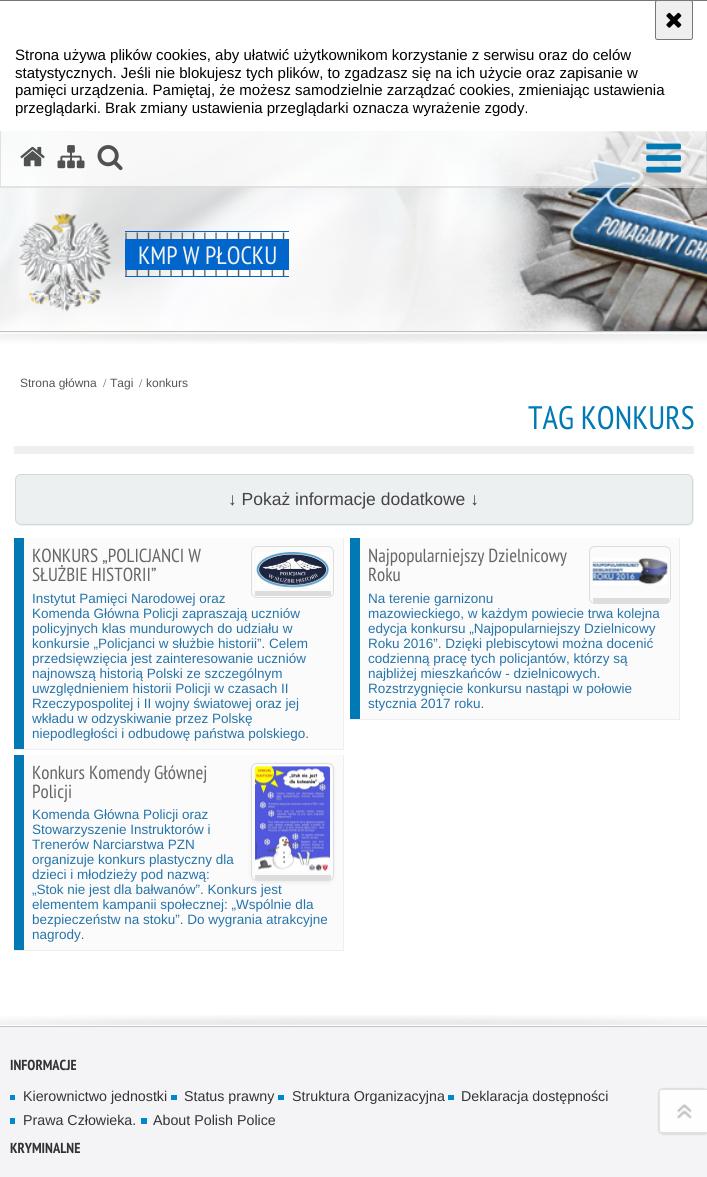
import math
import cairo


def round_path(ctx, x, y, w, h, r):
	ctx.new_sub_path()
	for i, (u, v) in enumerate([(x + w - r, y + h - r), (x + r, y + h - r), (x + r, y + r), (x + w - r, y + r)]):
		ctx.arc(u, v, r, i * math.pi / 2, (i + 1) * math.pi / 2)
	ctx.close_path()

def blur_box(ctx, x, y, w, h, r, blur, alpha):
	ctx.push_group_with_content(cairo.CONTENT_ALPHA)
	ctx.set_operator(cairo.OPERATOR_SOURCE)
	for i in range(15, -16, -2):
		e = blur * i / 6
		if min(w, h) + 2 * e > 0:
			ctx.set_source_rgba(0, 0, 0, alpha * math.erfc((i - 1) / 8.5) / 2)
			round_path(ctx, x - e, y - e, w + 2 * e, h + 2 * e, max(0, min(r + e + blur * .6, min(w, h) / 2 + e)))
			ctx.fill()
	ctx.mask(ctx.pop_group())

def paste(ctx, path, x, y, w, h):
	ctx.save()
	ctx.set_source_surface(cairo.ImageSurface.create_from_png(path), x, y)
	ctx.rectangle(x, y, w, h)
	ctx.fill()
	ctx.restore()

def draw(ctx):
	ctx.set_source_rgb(1, 1, 1)
	ctx.paint()
	ctx.set_source_rgb(0.463, 0.463, 0.463)
	ctx.rectangle(0, 0, 707, 1)
	ctx.fill()
	ctx.set_source_rgb(0.937, 0.937, 0.937)
	round_path(ctx, 655.5, 0.5, 37, 39, 2)
	ctx.fill_preserve()
	ctx.set_source_rgb(0.463, 0.463, 0.463)
	ctx.set_line_width(1)
	ctx.stroke()
	paste(ctx, 'media/1.png', 666, 12, 16, 16)
	ctx.select_font_face('Liberation Sans')
	ctx.set_font_size(15)
	ctx.set_source_rgb(0, 0, 0)
	for x, y, s in [
		(15, 60, 'Strona używa plików cookies, aby ułatwić użytkownikom korzystanie z serwisu oraz do celów'),
		(15, 78, 'statystycznych. Jeśli nie blokujesz tych plików, to zgadzasz się na ich użycie oraz zapisanie w'),
		(15, 95, 'pamięci urządzenia. Pamiętaj, że możesz samodzielnie zarządzać cookies, zmieniając ustawienia'),
		(15, 113, 'przeglądarki. Brak zmiany ustawienia przeglądarki oznacza wyrażenie zgody.'),
	]:
		ctx.move_to(x, y)
		ctx.show_text(s)
	paste(ctx, 'media/2.png', 0, 131, 707, 202)
	paste(ctx, 'media/3.png', 0, 333, 707, 11)
	paste(ctx, 'media/4.png', 0, 131, 707, 200)
	ctx.set_source_rgb(0.757, 0.757, 0.757)
	ctx.rectangle(0, 331, 707, 1)
	ctx.fill()
	ctx.set_source_rgba(1, 1, 1, 0.7)
	ctx.rectangle(0, 131, 707, 57)
	ctx.fill()
	ctx.set_source_rgba(0, 0, 0, 0.1)
	ctx.new_path()
	ctx.move_to(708, 131)
	ctx.line_to(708, 188)
	ctx.line_to(706, 186)
	ctx.line_to(706, 131)
	ctx.close_path()
	ctx.fill()
	ctx.new_path()
	ctx.move_to(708, 188)
	ctx.line_to(0, 188)
	ctx.line_to(1, 186)
	ctx.line_to(706, 186)
	ctx.close_path()
	ctx.fill()
	ctx.new_path()
	ctx.move_to(0, 188)
	ctx.line_to(0, 131)
	ctx.line_to(1, 131)
	ctx.line_to(1, 186)
	ctx.close_path()
	ctx.fill()
	paste(ctx, 'media/5.png', 20, 146, 25, 21)
	paste(ctx, 'media/6.png', 57, 145, 28, 24)
	paste(ctx, 'media/7.png', 97, 145, 26, 26)
	paste(ctx, 'media/8.png', 646, 143, 35, 30)
	paste(ctx, 'media/9.png', 125, 232, 160, 44)
	ctx.set_source_rgb(0, 0.4, 0.8)
	ctx.rectangle(125, 231, 164, 1)
	ctx.fill()
	ctx.rectangle(125, 276, 164, 1)
	ctx.fill()
	paste(ctx, 'media/10.png', 18, 213, 94, 99)
	ctx.rectangle(125, 239, 164, 31)
	ctx.fill()
	ctx.select_font_face('PT Sans Narrow')
	ctx.set_font_size(25)
	ctx.set_source_rgb(0.945, 0.945, 0.945)
	ctx.move_to(138, 264)
	ctx.show_text('KMP W PŁOCKU')
	ctx.select_font_face('Liberation Sans')
	ctx.set_font_size(12)
	ctx.set_source_rgb(0.333, 0.333, 0.333)
	ctx.move_to(20, 387)
	ctx.show_text('Strona główna')
	ctx.select_font_face('Liberation Serif')
	ctx.move_to(103, 387)
	ctx.show_text('/')
	ctx.select_font_face('Liberation Sans')
	ctx.move_to(110, 387)
	ctx.show_text('Tagi')
	ctx.select_font_face('Liberation Serif')
	ctx.move_to(139, 387)
	ctx.show_text('/')
	ctx.select_font_face('Liberation Sans')
	ctx.move_to(146, 387)
	ctx.show_text('konkurs')
	ctx.set_source_rgb(0.937, 0.937, 0.937)
	ctx.rectangle(14, 446, 680, 8)
	ctx.fill()
	ctx.select_font_face('PT Sans Narrow')
	ctx.set_font_size(32.5)
	ctx.set_source_rgb(0, 0.475, 0.71)
	ctx.move_to(528, 429)
	ctx.show_text('TAG KONKURS')
	ctx.set_source_rgb(0.949, 0.949, 0.949)
	ctx.new_path()
	ctx.move_to(17, 523)
	ctx.curve_to(18, 525, 20, 526, 22, 526)
	ctx.line_to(688, 526)
	ctx.curve_to(691, 526, 694, 523, 694, 520)
	ctx.line_to(694, 481)
	ctx.curve_to(694, 479, 693, 477, 691, 476)
	ctx.curve_to(692, 477, 692, 478, 692, 480)
	ctx.line_to(692, 519)
	ctx.curve_to(692, 522, 690, 525, 686, 525)
	ctx.line_to(21, 525)
	ctx.curve_to(20, 525, 18, 524, 17, 523)
	ctx.close_path()
	ctx.fill()
	ctx.set_source_rgb(0.925, 0.941, 0.945)
	round_path(ctx, 15.5, 474.5, 677, 50, 5.5)
	ctx.fill_preserve()
	ctx.set_source_rgb(0.812, 0.851, 0.859)
	ctx.stroke()
	ctx.select_font_face('Liberation Sans')
	ctx.set_font_size(17.5)
	ctx.set_source_rgb(0.267, 0.267, 0.267)
	ctx.move_to(228, 505)
	ctx.show_text('↓ Pokaż informacje dodatkowe ↓')
	ctx.set_source_rgb(0.933, 0.933, 0.933)
	ctx.rectangle(14, 749, 330, 1)
	ctx.fill()
	ctx.set_source_rgb(0.984, 0.984, 0.984)
	ctx.rectangle(24, 538, 319, 211)
	ctx.fill()
	ctx.set_source_rgb(0.933, 0.933, 0.933)
	ctx.rectangle(343, 538, 1, 211)
	ctx.fill()
	ctx.set_source_rgb(0, 0.475, 0.71)
	ctx.rectangle(14, 538, 10, 211)
	ctx.fill()
	ctx.select_font_face('PT Sans Narrow')
	ctx.set_font_size(18.9)
	ctx.set_source_rgb(0.4, 0.4, 0.4)
	ctx.move_to(32, 562)
	ctx.show_text('KONKURS „POLICJANCI W')
	ctx.move_to(32, 581)
	ctx.show_text('SŁUŻBIE HISTORII”')
	round_path(ctx, 251.5, 546.5, 82, 51, 5.5)
	ctx.set_source_rgb(0.867, 0.867, 0.867)
	ctx.stroke()
	ctx.rectangle(255, 591, 76, 5)
	ctx.fill()
	paste(ctx, 'media/11.png', 256, 552, 73, 36)
	ctx.select_font_face('Liberation Sans')
	ctx.set_font_size(13.5)
	ctx.set_source_rgb(0.145, 0.455, 0.663)
	for x, y, s in [
		(32, 603, 'Instytut Pamięci Narodowej oraz'),
		(32, 618, 'Komenda Główna Policji zapraszają uczniów'),
		(32, 633, 'policyjnych klas mundurowych do udziału w'),
		(32, 648, 'konkursie „Policjanci w służbie historii”. Celem'),
		(32, 663, 'przedsięwzięcia jest zainteresowanie uczniów'),
		(32, 678, 'najnowszą historią Polski ze szczególnym'),
		(32, 693, 'uwzględnieniem historii Policji w czasach II'),
		(32, 708, 'Rzeczypospolitej i II wojny światowej oraz jej'),
		(32, 723, 'wkładu w odzyskiwanie przez Polskę'),
		(32, 738, 'niepodległości i odbudowę państwa polskiego.'),
	]:
		ctx.move_to(x, y)
		ctx.show_text(s)
	ctx.set_source_rgb(0.933, 0.933, 0.933)
	ctx.rectangle(350, 719, 330, 1)
	ctx.fill()
	ctx.set_source_rgb(0.984, 0.984, 0.984)
	ctx.rectangle(360, 538, 319, 181)
	ctx.fill()
	ctx.set_source_rgb(0.933, 0.933, 0.933)
	ctx.rectangle(679, 538, 1, 181)
	ctx.fill()
	ctx.set_source_rgb(0, 0.475, 0.71)
	ctx.rectangle(350, 538, 10, 181)
	ctx.fill()
	ctx.select_font_face('PT Sans Narrow')
	ctx.set_font_size(18.9)
	ctx.set_source_rgb(0.4, 0.4, 0.4)
	ctx.move_to(368, 562)
	ctx.show_text('Najpopularniejszy Dzielnicowy')
	ctx.move_to(368, 581)
	ctx.show_text('Roku')
	round_path(ctx, 589.5, 546.5, 81, 57, 5.5)
	ctx.set_source_rgb(0.867, 0.867, 0.867)
	ctx.stroke()
	ctx.rectangle(593, 598, 76, 5)
	ctx.fill()
	paste(ctx, 'media/12.png', 592, 558, 76, 27)
	ctx.select_font_face('Liberation Sans')
	ctx.set_font_size(13.5)
	ctx.set_source_rgb(0.145, 0.455, 0.663)
	for x, y, s in [
		(368, 603, 'Na terenie garnizonu'),
		(368, 618, 'mazowieckiego, w każdym powiecie trwa kolejna'),
		(368, 633, 'edycja konkursu „Najpopularniejszy Dzielnicowy'),
		(368, 648, 'Roku 2016”. Dzięki plebiscytowi można docenić'),
		(368, 663, 'codzienną pracę tych policjantów, którzy są'),
		(368, 678, 'najbliżej mieszkańców - dzielnicowych.'),
		(368, 693, 'Rozstrzygnięcie konkursu nastąpi w połowie'),
		(368, 708, 'stycznia 2017 roku.'),
	]:
		ctx.move_to(x, y)
		ctx.show_text(s)
	ctx.set_source_rgb(0.933, 0.933, 0.933)
	ctx.rectangle(14, 950, 330, 1)
	ctx.fill()
	ctx.set_source_rgb(0.984, 0.984, 0.984)
	ctx.rectangle(24, 755, 319, 195)
	ctx.fill()
	ctx.set_source_rgb(0.933, 0.933, 0.933)
	ctx.rectangle(343, 755, 1, 195)
	ctx.fill()
	ctx.set_source_rgb(0, 0.475, 0.71)
	ctx.rectangle(14, 755, 10, 195)
	ctx.fill()
	ctx.select_font_face('PT Sans Narrow')
	ctx.set_font_size(18.9)
	ctx.set_source_rgb(0.4, 0.4, 0.4)
	ctx.move_to(32, 779)
	ctx.show_text('Konkurs Komendy Głównej')
	ctx.move_to(32, 798)
	ctx.show_text('Policji')
	ctx.save()
	ctx.set_fill_rule(cairo.FILL_RULE_EVEN_ODD)
	ctx.new_path()
	ctx.move_to(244, 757)
	ctx.line_to(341, 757)
	ctx.line_to(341, 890)
	ctx.line_to(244, 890)
	ctx.close_path()
	ctx.move_to(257, 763)
	ctx.line_to(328, 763)
	ctx.curve_to(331.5, 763, 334, 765.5, 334, 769)
	ctx.line_to(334, 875)
	ctx.curve_to(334, 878.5, 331.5, 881, 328, 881)
	ctx.line_to(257, 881)
	ctx.curve_to(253.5, 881, 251, 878.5, 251, 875)
	ctx.line_to(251, 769)
	ctx.curve_to(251, 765.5, 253.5, 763, 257, 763)
	ctx.close_path()
	ctx.clip()
	ctx.set_source_rgb(0, 0, 0)
	blur_box(ctx, 251, 764, 83, 119, 6, 2, 0.06)
	ctx.restore()
	round_path(ctx, 251.5, 763.5, 82, 117, 5.5)
	ctx.set_source_rgb(0.867, 0.867, 0.867)
	ctx.stroke()
	ctx.rectangle(255, 875, 76, 5)
	ctx.fill()
	paste(ctx, 'media/13.png', 255, 766, 75, 105)
	ctx.select_font_face('Liberation Sans')
	ctx.set_font_size(13.5)
	ctx.set_source_rgb(0.145, 0.455, 0.663)
	for x, y, s in [
		(32, 819, 'Komenda Główna Policji oraz'),
		(32, 834, 'Stowarzyszenie Instruktorów i'),
		(32, 849, 'Trenerów Narciarstwa PZN'),
		(32, 864, 'organizuje konkurs plastyczny dla'),
		(32, 879, 'dzieci i młodzieży pod nazwą:'),
		(32, 894, '„Stok nie jest dla bałwanów”. Konkurs jest'),
		(32, 909, 'elementem kampanii społecznej: „Wspólnie dla'),
		(32, 924, 'bezpieczeństw na stoku”. Do wygrania atrakcyjne'),
		(32, 939, 'nagrody.'),
	]:
		ctx.move_to(x, y)
		ctx.show_text(s)
	paste(ctx, 'media/14.png', 0, 1015, 707, 10)
	ctx.set_source_rgb(0.957, 0.957, 0.965)
	ctx.rectangle(0, 1027, 707, 150)
	ctx.fill()
	ctx.set_source_rgb(0.761, 0.761, 0.761)
	ctx.rectangle(0, 1026, 707, 1)
	ctx.fill()
	ctx.select_font_face('PT Sans Narrow', cairo.FONT_SLANT_NORMAL, cairo.FONT_WEIGHT_BOLD)
	ctx.set_font_size(14.5)
	ctx.set_source_rgb(0.2, 0.2, 0.2)
	ctx.move_to(10, 1070)
	ctx.show_text('INFORMACJE')
	ctx.set_source_rgb(0, 0.533, 0.8)
	ctx.rectangle(10, 1095, 5, 5)
	ctx.fill()
	ctx.select_font_face('Liberation Sans')
	ctx.set_font_size(14.25)
	ctx.set_source_rgb(0.2, 0.2, 0.2)
	ctx.move_to(23, 1101)
	ctx.show_text('Kierownictwo jednostki')
	ctx.set_source_rgb(0, 0.533, 0.8)
	ctx.rectangle(171, 1095, 6, 5)
	ctx.fill()
	ctx.set_source_rgb(0.2, 0.2, 0.2)
	ctx.move_to(184, 1101)
	ctx.show_text('Status prawny')
	ctx.set_source_rgb(0, 0.533, 0.8)
	ctx.rectangle(278, 1095, 6, 5)
	ctx.fill()
	ctx.set_source_rgb(0.2, 0.2, 0.2)
	ctx.move_to(292, 1101)
	ctx.show_text('Struktura Organizacyjna')
	ctx.set_source_rgb(0, 0.533, 0.8)
	ctx.rectangle(448, 1095, 6, 5)
	ctx.fill()
	ctx.set_source_rgb(0.2, 0.2, 0.2)
	ctx.move_to(461, 1101)
	ctx.show_text('Deklaracja dostępności')
	ctx.set_source_rgb(0, 0.533, 0.8)
	ctx.rectangle(10, 1118, 5, 6)
	ctx.fill()
	ctx.set_source_rgb(0.2, 0.2, 0.2)
	ctx.move_to(23, 1125)
	ctx.show_text('Prawa Człowieka.')
	ctx.set_source_rgb(0, 0.533, 0.8)
	ctx.rectangle(141, 1118, 6, 6)
	ctx.fill()
	ctx.set_source_rgb(0.2, 0.2, 0.2)
	ctx.move_to(153, 1125)
	ctx.show_text('About Polish Police')
	ctx.select_font_face('PT Sans Narrow', cairo.FONT_SLANT_NORMAL, cairo.FONT_WEIGHT_BOLD)
	ctx.set_font_size(14.5)
	ctx.move_to(10, 1153)
	ctx.show_text('KRYMINALNE')
	ctx.set_source_rgb(0, 0, 0)
	blur_box(ctx, 659, 1089, 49, 45, 4, 1, 0.25)
	ctx.set_source_rgb(0.996, 0.996, 0.996)
	ctx.new_path()
	ctx.move_to(663, 1089)
	ctx.line_to(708, 1089)
	ctx.line_to(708, 1134)
	ctx.line_to(663, 1134)
	ctx.curve_to(661, 1134, 659, 1132, 659, 1130)
	ctx.line_to(659, 1093)
	ctx.curve_to(659, 1091, 661, 1089, 663, 1089)
	ctx.close_path()
	ctx.fill()
	ctx.set_source_rgb(0.882, 0.882, 0.882)
	ctx.set_fill_rule(cairo.FILL_RULE_EVEN_ODD)
	ctx.new_path()
	ctx.move_to(662, 1089)
	ctx.line_to(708, 1089)
	ctx.line_to(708, 1134)
	ctx.line_to(662, 1134)
	ctx.curve_to(660, 1134, 659, 1132, 659, 1130)
	ctx.line_to(659, 1092)
	ctx.curve_to(659, 1090, 660, 1089, 662, 1089)
	ctx.close_path()
	ctx.move_to(662, 1090)
	ctx.line_to(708, 1090)
	ctx.line_to(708, 1132)
	ctx.line_to(662, 1132)
	ctx.curve_to(661, 1132, 660, 1131, 660, 1130)
	ctx.line_to(660, 1092)
	ctx.curve_to(660, 1091, 661, 1090, 662, 1090)
	ctx.close_path()
	ctx.fill()
	paste(ctx, 'media/15.png', 677, 1103, 15, 16)


surface = cairo.ImageSurface(cairo.FORMAT_RGB24, 707, 1177)
ctx = cairo.Context(surface)
options = cairo.FontOptions()
options.set_hint_metrics(cairo.HINT_METRICS_OFF)
options.set_hint_style(cairo.HINT_STYLE_NONE)
ctx.set_font_options(options)
ctx.set_miter_limit(4)
draw(ctx)
surface.write_to_png('image.png')
